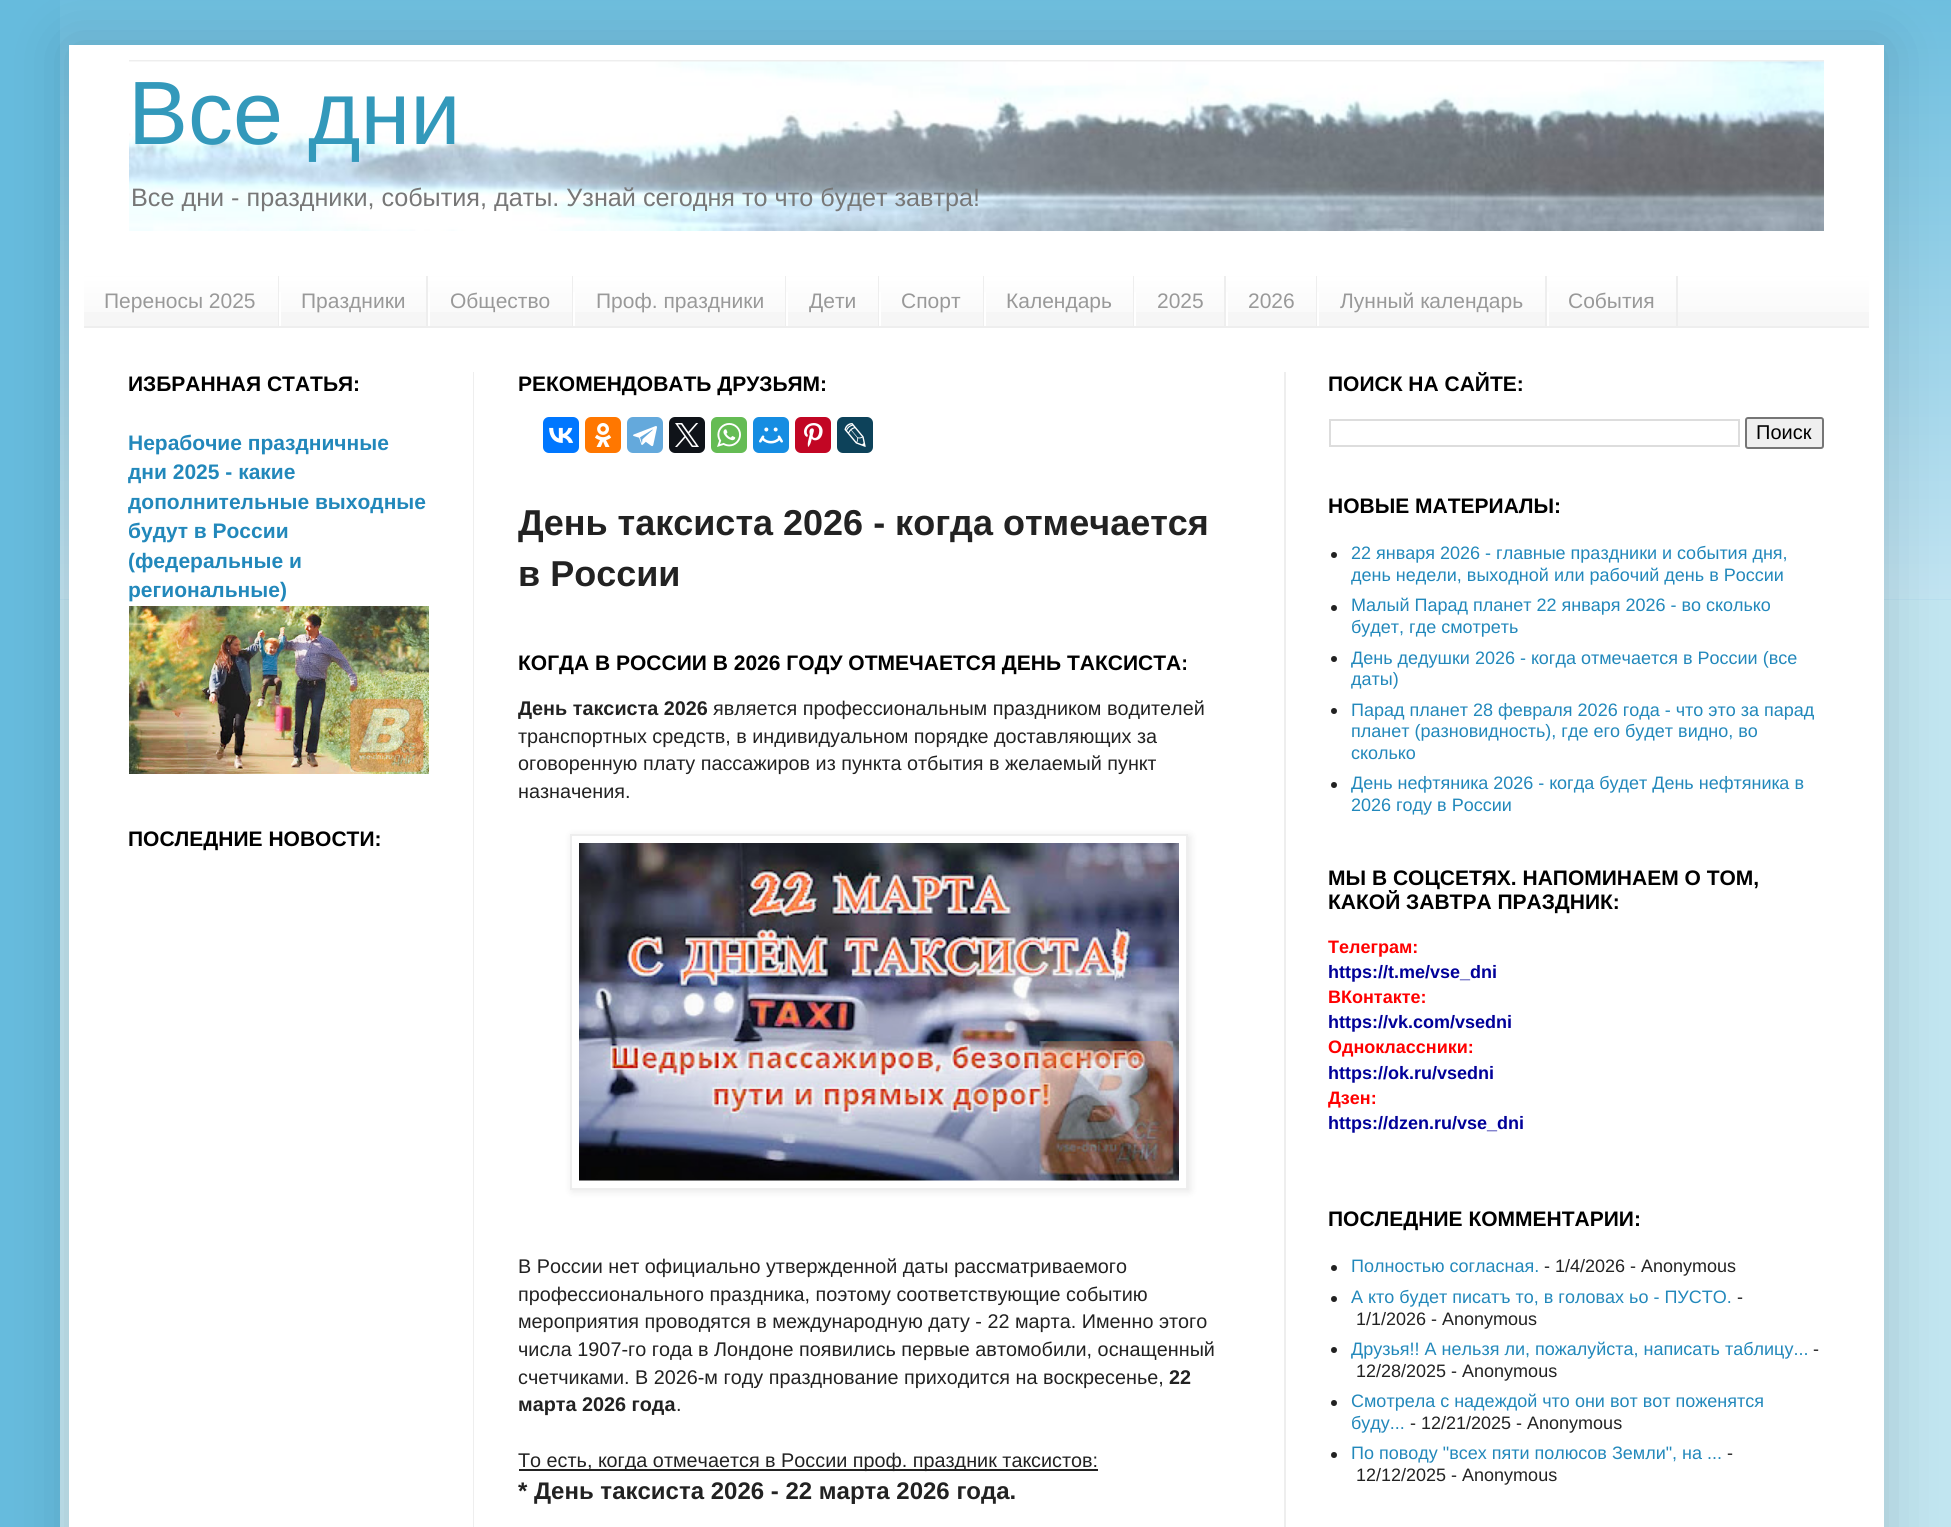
import math
import cairo


def round_path(ctx, x, y, w, h, r):
	ctx.new_sub_path()
	for i, (u, v) in enumerate([(x + w - r, y + h - r), (x + r, y + h - r), (x + r, y + r), (x + w - r, y + r)]):
		ctx.arc(u, v, r, i * math.pi / 2, (i + 1) * math.pi / 2)
	ctx.close_path()

def blur_box(ctx, x, y, w, h, r, blur, alpha):
	ctx.push_group_with_content(cairo.CONTENT_ALPHA)
	ctx.set_operator(cairo.OPERATOR_SOURCE)
	for i in range(15, -16, -2):
		e = blur * i / 6
		if min(w, h) + 2 * e > 0:
			ctx.set_source_rgba(0, 0, 0, alpha * math.erfc((i - 1) / 8.5) / 2)
			round_path(ctx, x - e, y - e, w + 2 * e, h + 2 * e, max(0, min(r + e + blur * .6, min(w, h) / 2 + e)))
			ctx.fill()
	ctx.mask(ctx.pop_group())

def paste(ctx, path, x, y, w, h):
	ctx.save()
	ctx.set_source_surface(cairo.ImageSurface.create_from_png(path), x, y)
	ctx.rectangle(x, y, w, h)
	ctx.fill()
	ctx.restore()

def draw(ctx):
	ctx.set_source_rgb(0.4, 0.733, 0.867)
	ctx.paint()
	paste(ctx, 'media/1.png', 60, 0, 1891, 600)
	ctx.set_source_rgb(0.757, 0.898, 0.941)
	ctx.rectangle(60, 600, 1891, 927)
	ctx.fill()
	ctx.set_source_rgb(0, 0, 0)
	blur_box(ctx, 69, 45, 1815, 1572, 0, 30, 0.15)
	ctx.set_source_rgb(1, 1, 1)
	ctx.rectangle(69, 45, 1815, 1482)
	ctx.fill()
	ctx.set_source_rgb(0.933, 0.933, 0.933)
	ctx.rectangle(129, 60, 1695, 2)
	ctx.fill()
	paste(ctx, 'media/2.png', 129, 61, 1695, 170)
	ctx.select_font_face('Liberation Sans')
	ctx.set_font_size(90)
	ctx.set_source_rgb(0.2, 0.6, 0.733)
	ctx.move_to(128, 144)
	ctx.show_text('Все дни')
	ctx.set_font_size(25.2)
	ctx.set_source_rgb(0.467, 0.467, 0.467)
	ctx.move_to(131, 206)
	ctx.show_text('Все дни - праздники, события, даты. Узнай сегодня то что будет завтра!')
	ctx.set_source_rgb(0.961, 0.961, 0.961)
	ctx.rectangle(84, 276, 1785, 50)
	ctx.fill()
	paste(ctx, 'media/3.png', 84, 276, 1785, 36)
	ctx.set_source_rgb(0.933, 0.933, 0.933)
	ctx.rectangle(84, 326, 1785, 2)
	ctx.fill()
	ctx.rectangle(278, 276, 1, 50)
	ctx.fill()
	ctx.set_font_size(21)
	ctx.set_source_rgb(0.6, 0.6, 0.6)
	ctx.move_to(104, 308)
	ctx.show_text('Переносы 2025')
	ctx.set_source_rgb(0.933, 0.933, 0.933)
	ctx.rectangle(426, 276, 2, 50)
	ctx.fill()
	ctx.set_source_rgb(1, 1, 1)
	ctx.rectangle(279, 292, 2, 34)
	ctx.fill()
	ctx.set_source_rgb(0.6, 0.6, 0.6)
	ctx.move_to(301, 308)
	ctx.show_text('Праздники')
	ctx.set_source_rgb(0.933, 0.933, 0.933)
	ctx.rectangle(572, 276, 1, 50)
	ctx.fill()
	ctx.set_source_rgb(1, 1, 1)
	ctx.rectangle(428, 292, 2, 34)
	ctx.fill()
	ctx.set_source_rgb(0.6, 0.6, 0.6)
	ctx.move_to(450, 308)
	ctx.show_text('Общество')
	ctx.set_source_rgb(0.933, 0.933, 0.933)
	ctx.rectangle(785, 276, 1, 50)
	ctx.fill()
	ctx.set_source_rgb(1, 1, 1)
	ctx.rectangle(573, 292, 2, 34)
	ctx.fill()
	ctx.set_source_rgb(0.6, 0.6, 0.6)
	ctx.move_to(596, 308)
	ctx.show_text('Проф. праздники')
	ctx.set_source_rgb(0.933, 0.933, 0.933)
	ctx.rectangle(878, 276, 1, 50)
	ctx.fill()
	ctx.set_source_rgb(1, 1, 1)
	ctx.rectangle(786, 292, 2, 34)
	ctx.fill()
	ctx.set_source_rgb(0.6, 0.6, 0.6)
	ctx.move_to(809, 308)
	ctx.show_text('Дети')
	ctx.set_source_rgb(0.933, 0.933, 0.933)
	ctx.rectangle(983, 276, 1, 50)
	ctx.fill()
	ctx.set_source_rgb(1, 1, 1)
	ctx.rectangle(879, 292, 2, 34)
	ctx.fill()
	ctx.set_source_rgb(0.6, 0.6, 0.6)
	ctx.move_to(901, 308)
	ctx.show_text('Спорт')
	ctx.set_source_rgb(0.933, 0.933, 0.933)
	ctx.rectangle(1133, 276, 1, 50)
	ctx.fill()
	ctx.set_source_rgb(1, 1, 1)
	ctx.rectangle(984, 292, 2, 34)
	ctx.fill()
	ctx.set_source_rgb(0.6, 0.6, 0.6)
	ctx.move_to(1006, 308)
	ctx.show_text('Календарь')
	ctx.set_source_rgb(0.933, 0.933, 0.933)
	ctx.rectangle(1224, 276, 2, 50)
	ctx.fill()
	ctx.set_source_rgb(1, 1, 1)
	ctx.rectangle(1134, 292, 2, 34)
	ctx.fill()
	ctx.set_source_rgb(0.6, 0.6, 0.6)
	ctx.move_to(1157, 308)
	ctx.show_text('2025')
	ctx.set_source_rgb(0.933, 0.933, 0.933)
	ctx.rectangle(1316, 276, 1, 50)
	ctx.fill()
	ctx.set_source_rgb(1, 1, 1)
	ctx.rectangle(1226, 292, 2, 34)
	ctx.fill()
	ctx.set_source_rgb(0.6, 0.6, 0.6)
	ctx.move_to(1248, 308)
	ctx.show_text('2026')
	ctx.set_source_rgb(0.933, 0.933, 0.933)
	ctx.rectangle(1545, 276, 2, 50)
	ctx.fill()
	ctx.set_source_rgb(1, 1, 1)
	ctx.rectangle(1317, 292, 2, 34)
	ctx.fill()
	ctx.set_source_rgb(0.6, 0.6, 0.6)
	ctx.move_to(1340, 308)
	ctx.show_text('Лунный календарь')
	ctx.set_source_rgb(0.933, 0.933, 0.933)
	ctx.rectangle(1676, 276, 2, 50)
	ctx.fill()
	ctx.set_source_rgb(1, 1, 1)
	ctx.rectangle(1547, 292, 2, 34)
	ctx.fill()
	ctx.set_source_rgb(0.6, 0.6, 0.6)
	ctx.move_to(1568, 308)
	ctx.show_text('События')
	ctx.select_font_face('Liberation Sans', cairo.FONT_SLANT_NORMAL, cairo.FONT_WEIGHT_BOLD)
	ctx.set_source_rgb(0, 0, 0)
	ctx.move_to(128, 391)
	ctx.show_text('ИЗБРАННАЯ СТАТЬЯ:')
	ctx.set_source_rgb(0.133, 0.533, 0.733)
	for x, y, s in [
		(128, 450, 'Нерабочие праздничные'),
		(128, 479, 'дни 2025 - какие'),
		(128, 509, 'дополнительные выходные'),
		(128, 538, 'будут в России'),
		(128, 568, '(федеральные и'),
		(128, 597, 'региональные)'),
	]:
		ctx.move_to(x, y)
		ctx.show_text(s)
	paste(ctx, 'media/4.png', 129, 606, 300, 168)
	ctx.set_source_rgb(0, 0, 0)
	ctx.move_to(128, 846)
	ctx.show_text('ПОСЛЕДНИЕ НОВОСТИ:')
	ctx.move_to(518, 391)
	ctx.show_text('РЕКОМЕНДОВАТЬ ДРУЗЬЯМ:')
	ctx.set_source_rgb(0, 0.467, 1)
	round_path(ctx, 543, 417, 36, 36, 6)
	ctx.fill()
	paste(ctx, 'media/5.png', 549, 427, 24, 16)
	ctx.set_source_rgb(1, 0.467, 0)
	round_path(ctx, 585, 417, 36, 36, 6)
	ctx.fill()
	paste(ctx, 'media/6.png', 595, 423, 17, 24)
	ctx.set_source_rgb(0.392, 0.663, 0.863)
	round_path(ctx, 627, 417, 36, 36, 6)
	ctx.fill()
	paste(ctx, 'media/7.png', 633, 426, 24, 21)
	ctx.set_source_rgb(0.059, 0.078, 0.098)
	round_path(ctx, 669, 417, 36, 36, 6)
	ctx.fill()
	paste(ctx, 'media/8.png', 675, 423, 24, 24)
	ctx.set_source_rgb(0.396, 0.737, 0.329)
	round_path(ctx, 711, 417, 36, 36, 6)
	ctx.fill()
	paste(ctx, 'media/9.png', 717, 423, 24, 24)
	ctx.set_source_rgb(0.086, 0.553, 0.886)
	round_path(ctx, 753, 417, 36, 36, 6)
	ctx.fill()
	paste(ctx, 'media/10.png', 759, 427, 24, 17)
	ctx.set_source_rgb(0.761, 0.027, 0.141)
	round_path(ctx, 795, 417, 36, 36, 6)
	ctx.fill()
	paste(ctx, 'media/11.png', 804, 423, 19, 24)
	ctx.set_source_rgb(0.051, 0.259, 0.353)
	round_path(ctx, 837, 417, 36, 36, 6)
	ctx.fill()
	paste(ctx, 'media/12.png', 844, 423, 22, 24)
	ctx.set_font_size(36)
	ctx.set_source_rgb(0.133, 0.133, 0.133)
	ctx.move_to(518, 535)
	ctx.show_text('День таксиста 2026 - когда отмечается')
	ctx.move_to(518, 586)
	ctx.show_text('в России')
	ctx.set_font_size(21)
	ctx.set_source_rgb(0, 0, 0)
	ctx.move_to(518, 670)
	ctx.show_text('КОГДА В РОССИИ В 2026 ГОДУ ОТМЕЧАЕТСЯ ДЕНЬ ТАКСИСТА:')
	ctx.set_font_size(19.8)
	ctx.set_source_rgb(0.133, 0.133, 0.133)
	ctx.move_to(518, 715)
	ctx.show_text('День таксиста 2026')
	ctx.select_font_face('Liberation Sans')
	for x, y, s in [
		(713, 715, 'является профессиональным праздником водителей'),
		(518, 743, 'транспортных средств, в индивидуальном порядке доставляющих за'),
		(518, 770, 'оговоренную плату пассажиров из пункта отбытия в желаемый пункт'),
		(518, 798, 'назначения.'),
	]:
		ctx.move_to(x, y)
		ctx.show_text(s)
	ctx.set_source_rgb(0, 0, 0)
	blur_box(ctx, 572, 836, 618, 355, 0, 4, 0.1)
	ctx.set_source_rgb(1, 1, 1)
	ctx.rectangle(571, 835, 616, 354)
	ctx.fill_preserve()
	ctx.set_source_rgb(0.933, 0.933, 0.933)
	ctx.stroke()
	paste(ctx, 'media/13.png', 579, 843, 600, 338)
	ctx.set_source_rgb(0.133, 0.133, 0.133)
	for x, y, s in [
		(518, 1273, 'В России нет официально утвержденной даты рассматриваемого'),
		(518, 1301, 'профессионального праздника, поэтому соответствующие событию'),
		(518, 1328, 'мероприятия проводятся в международную дату - 22 марта. Именно этого'),
		(518, 1356, 'числа 1907-го года в Лондоне появились первые автомобили, оснащенный'),
		(518, 1384, 'счетчиками. В 2026-м году празднование приходится на воскресенье,'),
	]:
		ctx.move_to(x, y)
		ctx.show_text(s)
	ctx.select_font_face('Liberation Sans', cairo.FONT_SLANT_NORMAL, cairo.FONT_WEIGHT_BOLD)
	ctx.move_to(1169, 1384)
	ctx.show_text('22')
	ctx.move_to(518, 1411)
	ctx.show_text('марта 2026 года')
	ctx.select_font_face('Liberation Sans')
	ctx.move_to(676, 1411)
	ctx.show_text('.')
	ctx.rectangle(519, 1469, 579, 2)
	ctx.fill()
	ctx.move_to(518, 1467)
	ctx.show_text('То есть, когда отмечается в России проф. праздник таксистов:')
	ctx.select_font_face('Liberation Sans', cairo.FONT_SLANT_NORMAL, cairo.FONT_WEIGHT_BOLD)
	ctx.set_font_size(24)
	ctx.move_to(518, 1499)
	ctx.show_text('* День таксиста 2026 - 22 марта 2026 года.')
	ctx.set_font_size(21)
	ctx.set_source_rgb(0, 0, 0)
	ctx.move_to(1328, 391)
	ctx.show_text('ПОИСК НА САЙТЕ:')
	ctx.rectangle(1330, 420, 409, 26)
	ctx.set_source_rgb(0.867, 0.867, 0.867)
	ctx.stroke()
	ctx.set_source_rgb(0.937, 0.937, 0.937)
	round_path(ctx, 1746, 418, 77, 30, 2)
	ctx.fill_preserve()
	ctx.set_source_rgb(0.463, 0.463, 0.463)
	ctx.stroke()
	ctx.select_font_face('Liberation Sans')
	ctx.set_font_size(20)
	ctx.set_source_rgb(0, 0, 0)
	ctx.move_to(1756, 439)
	ctx.show_text('Поиск')
	ctx.select_font_face('Liberation Sans', cairo.FONT_SLANT_NORMAL, cairo.FONT_WEIGHT_BOLD)
	ctx.set_font_size(21)
	ctx.move_to(1328, 513)
	ctx.show_text('НОВЫЕ МАТЕРИАЛЫ:')
	ctx.set_source_rgb(0.133, 0.133, 0.133)
	ctx.new_path()
	ctx.arc(1334, 555, 3, 0, 2 * math.pi)
	ctx.fill()
	ctx.select_font_face('Liberation Sans')
	ctx.set_font_size(18)
	ctx.set_source_rgb(0.133, 0.533, 0.733)
	ctx.move_to(1351, 559)
	ctx.show_text('22 января 2026 - главные праздники и события дня,')
	ctx.move_to(1351, 581)
	ctx.show_text('день недели, выходной или рабочий день в России')
	ctx.set_source_rgb(0.133, 0.133, 0.133)
	ctx.new_path()
	ctx.arc(1334, 608, 3, 0, 2 * math.pi)
	ctx.fill()
	ctx.set_source_rgb(0.133, 0.533, 0.733)
	ctx.move_to(1351, 611)
	ctx.show_text('Малый Парад планет 22 января 2026 - во сколько')
	ctx.move_to(1351, 633)
	ctx.show_text('будет, где смотреть')
	ctx.set_source_rgb(0.133, 0.133, 0.133)
	ctx.new_path()
	ctx.arc(1334, 659, 3, 0, 2 * math.pi)
	ctx.fill()
	ctx.set_source_rgb(0.133, 0.533, 0.733)
	ctx.move_to(1351, 664)
	ctx.show_text('День дедушки 2026 - когда отмечается в России (все')
	ctx.move_to(1351, 685)
	ctx.show_text('даты)')
	ctx.set_source_rgb(0.133, 0.133, 0.133)
	ctx.new_path()
	ctx.arc(1334, 711, 3, 0, 2 * math.pi)
	ctx.fill()
	ctx.set_source_rgb(0.133, 0.533, 0.733)
	for x, y, s in [
		(1351, 716, 'Парад планет 28 февраля 2026 года - что это за парад'),
		(1351, 737, 'планет (разновидность), где его будет видно, во'),
		(1351, 759, 'сколько'),
	]:
		ctx.move_to(x, y)
		ctx.show_text(s)
	ctx.set_source_rgb(0.133, 0.133, 0.133)
	ctx.new_path()
	ctx.arc(1334, 785, 3, 0, 2 * math.pi)
	ctx.fill()
	ctx.set_source_rgb(0.133, 0.533, 0.733)
	ctx.move_to(1351, 789)
	ctx.show_text('День нефтяника 2026 - когда будет День нефтяника в')
	ctx.move_to(1351, 811)
	ctx.show_text('2026 году в России')
	ctx.select_font_face('Liberation Sans', cairo.FONT_SLANT_NORMAL, cairo.FONT_WEIGHT_BOLD)
	ctx.set_font_size(21)
	ctx.set_source_rgb(0, 0, 0)
	ctx.move_to(1328, 885)
	ctx.show_text('МЫ В СОЦСЕТЯХ. НАПОМИНАЕМ О ТОМ,')
	ctx.move_to(1328, 909)
	ctx.show_text('КАКОЙ ЗАВТРА ПРАЗДНИК:')
	ctx.set_font_size(18)
	ctx.set_source_rgb(1, 0, 0)
	ctx.move_to(1328, 953)
	ctx.show_text('Телеграм:')
	ctx.set_source_rgb(0, 0, 0.6)
	ctx.move_to(1328, 978)
	ctx.show_text('https://t.me/vse_dni')
	ctx.set_source_rgb(1, 0, 0)
	ctx.move_to(1328, 1003)
	ctx.show_text('ВКонтакте:')
	ctx.set_source_rgb(0, 0, 0.6)
	ctx.move_to(1328, 1028)
	ctx.show_text('https://vk.com/vsedni')
	ctx.set_source_rgb(1, 0, 0)
	ctx.move_to(1328, 1053)
	ctx.show_text('Одноклассники:')
	ctx.set_source_rgb(0, 0, 0.6)
	ctx.move_to(1328, 1079)
	ctx.show_text('https://ok.ru/vsedni')
	ctx.set_source_rgb(1, 0, 0)
	ctx.move_to(1328, 1104)
	ctx.show_text('Дзен:')
	ctx.set_source_rgb(0, 0, 0.6)
	ctx.move_to(1328, 1129)
	ctx.show_text('https://dzen.ru/vse_dni')
	ctx.set_font_size(21)
	ctx.set_source_rgb(0, 0, 0)
	ctx.move_to(1328, 1226)
	ctx.show_text('ПОСЛЕДНИЕ КОММЕНТАРИИ:')
	ctx.set_source_rgb(0.133, 0.133, 0.133)
	ctx.new_path()
	ctx.arc(1334, 1268, 3, 0, 2 * math.pi)
	ctx.fill()
	ctx.select_font_face('Liberation Sans')
	ctx.set_font_size(18)
	ctx.set_source_rgb(0.133, 0.533, 0.733)
	ctx.move_to(1351, 1272)
	ctx.show_text('Полностью согласная.')
	ctx.set_source_rgb(0.133, 0.133, 0.133)
	ctx.move_to(1544, 1272)
	ctx.show_text('- 1/4/2026 - Anonymous')
	ctx.new_path()
	ctx.arc(1334, 1299, 3, 0, 2 * math.pi)
	ctx.fill()
	ctx.set_source_rgb(0.133, 0.533, 0.733)
	ctx.move_to(1351, 1303)
	ctx.show_text('А кто будет писатъ то, в головах ьо - ПУСТО.')
	ctx.set_source_rgb(0.133, 0.133, 0.133)
	ctx.move_to(1737, 1303)
	ctx.show_text('-')
	ctx.move_to(1356, 1325)
	ctx.show_text('1/1/2026 - Anonymous')
	ctx.new_path()
	ctx.arc(1334, 1350, 3, 0, 2 * math.pi)
	ctx.fill()
	ctx.set_source_rgb(0.133, 0.533, 0.733)
	ctx.move_to(1351, 1355)
	ctx.show_text('Друзья!! А нельзя ли, пожалуйста, написать таблицу...')
	ctx.set_source_rgb(0.133, 0.133, 0.133)
	ctx.move_to(1813, 1355)
	ctx.show_text('-')
	ctx.move_to(1356, 1377)
	ctx.show_text('12/28/2025 - Anonymous')
	ctx.new_path()
	ctx.arc(1334, 1403, 3, 0, 2 * math.pi)
	ctx.fill()
	ctx.set_source_rgb(0.133, 0.533, 0.733)
	ctx.move_to(1351, 1407)
	ctx.show_text('Смотрела с надеждой что они вот вот поженятся')
	ctx.move_to(1351, 1429)
	ctx.show_text('буду...')
	ctx.set_source_rgb(0.133, 0.133, 0.133)
	ctx.move_to(1410, 1429)
	ctx.show_text('- 12/21/2025 - Anonymous')
	ctx.new_path()
	ctx.arc(1334, 1455, 3, 0, 2 * math.pi)
	ctx.fill()
	ctx.set_source_rgb(0.133, 0.533, 0.733)
	ctx.move_to(1351, 1459)
	ctx.show_text('По поводу "всех пяти полюсов Земли", на ...')
	ctx.set_source_rgb(0.133, 0.133, 0.133)
	ctx.move_to(1727, 1459)
	ctx.show_text('-')
	ctx.move_to(1356, 1481)
	ctx.show_text('12/12/2025 - Anonymous')
	ctx.set_source_rgb(0.933, 0.933, 0.933)
	ctx.rectangle(473, 372, 1, 1155)
	ctx.fill()
	ctx.rectangle(1284, 372, 2, 1155)
	ctx.fill()


surface = cairo.ImageSurface(cairo.FORMAT_RGB24, 1951, 1527)
ctx = cairo.Context(surface)
options = cairo.FontOptions()
options.set_hint_metrics(cairo.HINT_METRICS_OFF)
options.set_hint_style(cairo.HINT_STYLE_NONE)
ctx.set_font_options(options)
ctx.set_miter_limit(4)
draw(ctx)
surface.write_to_png('image.png')
